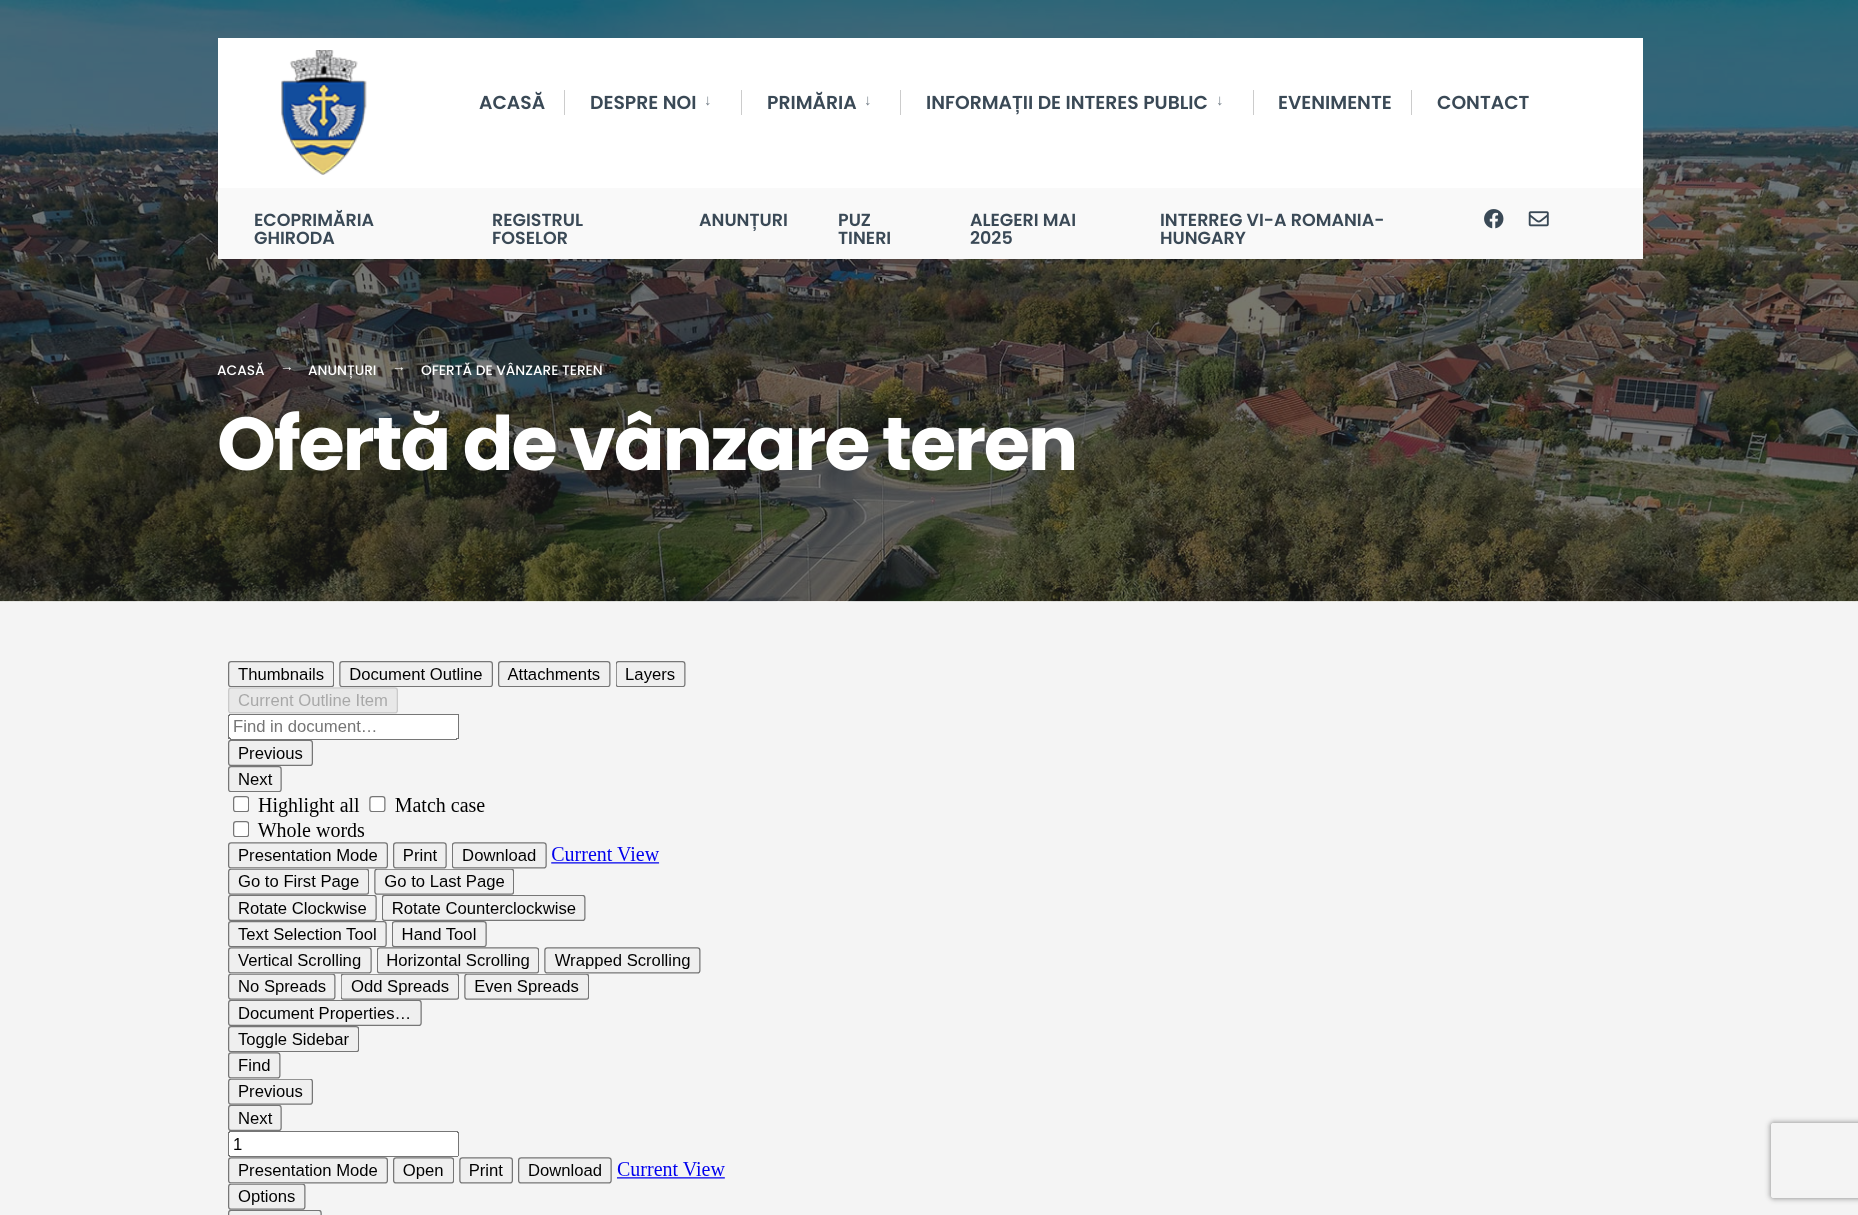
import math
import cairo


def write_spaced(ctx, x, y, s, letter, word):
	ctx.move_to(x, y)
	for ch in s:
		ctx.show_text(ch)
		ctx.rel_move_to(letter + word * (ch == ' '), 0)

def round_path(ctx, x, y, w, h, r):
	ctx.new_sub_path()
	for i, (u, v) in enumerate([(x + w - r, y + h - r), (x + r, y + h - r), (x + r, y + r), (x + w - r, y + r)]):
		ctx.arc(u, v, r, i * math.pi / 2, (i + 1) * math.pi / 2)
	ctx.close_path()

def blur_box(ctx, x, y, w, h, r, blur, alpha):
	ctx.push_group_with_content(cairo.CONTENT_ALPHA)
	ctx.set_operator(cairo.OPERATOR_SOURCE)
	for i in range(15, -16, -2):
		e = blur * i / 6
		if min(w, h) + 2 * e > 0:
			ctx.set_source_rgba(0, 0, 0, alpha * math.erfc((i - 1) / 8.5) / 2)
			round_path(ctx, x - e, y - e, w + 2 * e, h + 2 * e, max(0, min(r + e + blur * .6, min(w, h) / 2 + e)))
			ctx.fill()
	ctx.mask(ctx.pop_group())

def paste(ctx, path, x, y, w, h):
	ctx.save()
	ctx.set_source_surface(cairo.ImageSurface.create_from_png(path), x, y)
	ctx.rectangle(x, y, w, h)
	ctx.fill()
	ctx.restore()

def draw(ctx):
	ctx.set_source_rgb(0.957, 0.957, 0.957)
	ctx.paint()
	ctx.set_source_rgb(0.118, 0.118, 0.118)
	ctx.rectangle(0, 0, 1858, 601)
	ctx.fill()
	paste(ctx, 'media/4.png', 0, 0, 1858, 602)
	ctx.set_source_rgb(1, 1, 1)
	ctx.rectangle(218, 38, 1425, 150)
	ctx.fill()
	paste(ctx, 'media/1.png', 281, 50, 86, 125)
	ctx.select_font_face('Poppins SemiBold')
	ctx.set_font_size(18.75)
	ctx.set_source_rgb(0.227, 0.286, 0.337)
	ctx.move_to(479, 109)
	ctx.show_text('ACASĂ')
	ctx.set_source_rgb(0.8, 0.8, 0.8)
	ctx.rectangle(564, 90, 1, 25)
	ctx.fill()
	ctx.set_source_rgb(0.227, 0.286, 0.337)
	ctx.move_to(590, 109)
	ctx.show_text('DESPRE NOI')
	ctx.select_font_face('Liberation Sans')
	ctx.set_font_size(15)
	ctx.set_source_rgb(0.459, 0.502, 0.537)
	ctx.move_to(704, 105)
	ctx.show_text('↓')
	ctx.set_source_rgb(0.8, 0.8, 0.8)
	ctx.rectangle(741, 90, 1, 25)
	ctx.fill()
	ctx.select_font_face('Poppins SemiBold')
	ctx.set_font_size(18.75)
	ctx.set_source_rgb(0.227, 0.286, 0.337)
	ctx.move_to(767, 109)
	ctx.show_text('PRIMĂRIA')
	ctx.select_font_face('Liberation Sans')
	ctx.set_font_size(15)
	ctx.set_source_rgb(0.459, 0.502, 0.537)
	ctx.move_to(864, 105)
	ctx.show_text('↓')
	ctx.set_source_rgb(0.8, 0.8, 0.8)
	ctx.rectangle(900, 90, 1, 25)
	ctx.fill()
	ctx.select_font_face('Poppins SemiBold')
	ctx.set_font_size(18.75)
	ctx.set_source_rgb(0.227, 0.286, 0.337)
	ctx.move_to(926, 109)
	ctx.show_text('INFORMAȚII DE INTERES PUBLIC')
	ctx.select_font_face('Liberation Sans')
	ctx.set_font_size(15)
	ctx.set_source_rgb(0.459, 0.502, 0.537)
	ctx.move_to(1216, 105)
	ctx.show_text('↓')
	ctx.set_source_rgb(0.8, 0.8, 0.8)
	ctx.rectangle(1253, 90, 1, 25)
	ctx.fill()
	ctx.select_font_face('Poppins SemiBold')
	ctx.set_font_size(18.75)
	ctx.set_source_rgb(0.227, 0.286, 0.337)
	ctx.move_to(1278, 109)
	ctx.show_text('EVENIMENTE')
	ctx.set_source_rgb(0.8, 0.8, 0.8)
	ctx.rectangle(1411, 90, 1, 25)
	ctx.fill()
	ctx.set_source_rgb(0.227, 0.286, 0.337)
	ctx.move_to(1437, 109)
	ctx.show_text('CONTACT')
	ctx.set_source_rgb(0.976, 0.976, 0.976)
	ctx.rectangle(218, 188, 1425, 71)
	ctx.fill()
	ctx.set_font_size(17.5)
	ctx.set_source_rgb(0.227, 0.286, 0.337)
	for x, y, s in [
		(254, 226, 'ECOPRIMĂRIA'),
		(254, 244, 'GHIRODA'),
		(492, 226, 'REGISTRUL'),
		(492, 244, 'FOSELOR'),
		(699, 226, 'ANUNȚURI'),
		(838, 226, 'PUZ'),
		(838, 244, 'TINERI'),
		(970, 226, 'ALEGERI MAI'),
		(970, 244, '2025'),
		(1160, 226, 'INTERREG VI-A ROMANIA-'),
		(1160, 244, 'HUNGARY'),
	]:
		ctx.move_to(x, y)
		ctx.show_text(s)
	paste(ctx, 'media/2.png', 1484, 209, 20, 20)
	paste(ctx, 'media/3.png', 1528, 211, 21, 16)
	ctx.select_font_face('Poppins Medium')
	ctx.set_font_size(13.75)
	ctx.set_source_rgb(1, 1, 1)
	ctx.move_to(217, 375)
	ctx.show_text('ACASĂ')
	ctx.select_font_face('Liberation Serif')
	ctx.move_to(280, 371)
	ctx.show_text('→')
	ctx.select_font_face('Poppins Medium')
	ctx.move_to(308, 375)
	ctx.show_text('ANUNȚURI')
	ctx.select_font_face('Liberation Serif')
	ctx.move_to(392, 371)
	ctx.show_text('→')
	ctx.select_font_face('Poppins Medium')
	ctx.move_to(421, 375)
	ctx.show_text('OFERTĂ DE VÂNZARE TEREN')
	ctx.select_font_face('Poppins', cairo.FONT_SLANT_NORMAL, cairo.FONT_WEIGHT_BOLD)
	ctx.set_font_size(75)
	write_spaced(ctx, 217, 470, 'Ofertă de vânzare teren', -2.25, 0)
	paste(ctx, 'media/5.png', 228, 661, 497, 554)
	ctx.save()
	ctx.set_fill_rule(cairo.FILL_RULE_EVEN_ODD)
	ctx.new_path()
	ctx.move_to(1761, 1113)
	ctx.line_to(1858, 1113)
	ctx.line_to(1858, 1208)
	ctx.line_to(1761, 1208)
	ctx.close_path()
	ctx.move_to(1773.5, 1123)
	ctx.line_to(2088.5, 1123)
	ctx.curve_to(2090, 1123, 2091, 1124, 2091, 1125.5)
	ctx.line_to(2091, 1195.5)
	ctx.curve_to(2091, 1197, 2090, 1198, 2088.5, 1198)
	ctx.line_to(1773.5, 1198)
	ctx.curve_to(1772, 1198, 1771, 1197, 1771, 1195.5)
	ctx.line_to(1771, 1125.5)
	ctx.curve_to(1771, 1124, 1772, 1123, 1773.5, 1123)
	ctx.close_path()
	ctx.clip()
	ctx.set_source_rgb(0.502, 0.502, 0.502)
	blur_box(ctx, 1771, 1123, 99, 75, 2.5, 3, 1)
	ctx.restore()


surface = cairo.ImageSurface(cairo.FORMAT_RGB24, 1858, 1215)
ctx = cairo.Context(surface)
options = cairo.FontOptions()
options.set_hint_metrics(cairo.HINT_METRICS_OFF)
options.set_hint_style(cairo.HINT_STYLE_NONE)
ctx.set_font_options(options)
ctx.set_miter_limit(4)
draw(ctx)
surface.write_to_png('image.png')
